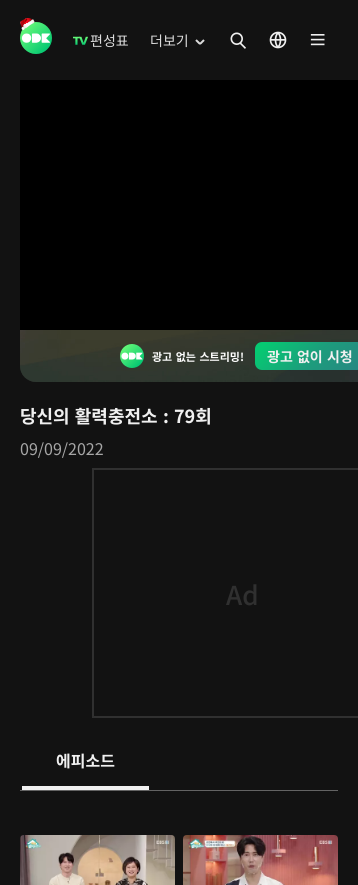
import math
import cairo


def write_spaced(ctx, x, y, s, letter, word):
	ctx.move_to(x, y)
	for ch in s:
		ctx.show_text(ch)
		ctx.rel_move_to(letter + word * (ch == ' '), 0)

def round_path(ctx, x, y, w, h, r):
	ctx.new_sub_path()
	for i, (u, v) in enumerate([(x + w - r, y + h - r), (x + r, y + h - r), (x + r, y + r), (x + w - r, y + r)]):
		ctx.arc(u, v, r, i * math.pi / 2, (i + 1) * math.pi / 2)
	ctx.close_path()

def paste(ctx, path, x, y, w, h):
	ctx.save()
	ctx.set_source_surface(cairo.ImageSurface.create_from_png(path), x, y)
	ctx.rectangle(x, y, w, h)
	ctx.fill()
	ctx.restore()

def draw(ctx):
	ctx.set_source_rgb(0.071, 0.071, 0.071)
	ctx.paint()
	paste(ctx, 'media/1.png', 20, 18, 32, 36)
	paste(ctx, 'media/2.png', 73, 36, 15, 9)
	ctx.select_font_face('Noto Sans KR')
	ctx.set_font_size(14)
	ctx.set_source_rgb(0.859, 0.859, 0.859)
	ctx.move_to(90, 46)
	ctx.show_text('편성표')
	ctx.move_to(150, 46)
	ctx.show_text('더보기')
	paste(ctx, 'media/3.png', 195, 39, 10, 6)
	paste(ctx, 'media/4.png', 230, 32, 16, 17)
	paste(ctx, 'media/5.png', 269, 31, 18, 18)
	paste(ctx, 'media/6.png', 310, 34, 15, 12)
	ctx.set_source_rgb(0, 0, 0)
	ctx.rectangle(20, 80, 338, 250)
	ctx.fill()
	ctx.set_source_rgb(0.129, 0.129, 0.129)
	ctx.new_path()
	ctx.move_to(20, 330)
	ctx.line_to(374, 330)
	ctx.line_to(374, 366)
	ctx.curve_to(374, 375, 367, 382, 358, 382)
	ctx.line_to(36, 382)
	ctx.curve_to(27, 382, 20, 375, 20, 366)
	ctx.close_path()
	ctx.fill()
	paste(ctx, 'media/7.png', 20, 330, 338, 52)
	paste(ctx, 'media/8.png', 120, 344, 24, 24)
	ctx.select_font_face('Noto Sans KR', cairo.FONT_SLANT_NORMAL, cairo.FONT_WEIGHT_BOLD)
	ctx.set_font_size(11)
	ctx.set_source_rgb(1, 1, 1)
	write_spaced(ctx, 152, 361, '광고 없는 스트리밍!', 0, 1)
	gradient = cairo.LinearGradient(273, 322, 346, 390)
	gradient.add_color_stop_rgba(0.09, 0.024, 0.788, 0.447, 1)
	gradient.add_color_stop_rgba(0.54, 0.11, 0.616, 0.486, 1)
	gradient.add_color_stop_rgba(0.97, 0.157, 0.529, 0.51, 1)
	ctx.set_source(gradient)
	round_path(ctx, 255, 342, 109, 28, 7)
	ctx.fill()
	ctx.set_font_size(14)
	ctx.set_source_rgb(0.941, 0.941, 0.941)
	write_spaced(ctx, 267, 362, '광고 없이 시청', 0, 1)
	ctx.set_font_size(18)
	write_spaced(ctx, 20, 423, '당신의 활력충전소', 0, 1)
	ctx.move_to(163, 423)
	ctx.show_text(':')
	ctx.move_to(174, 423)
	ctx.show_text('79회')
	ctx.select_font_face('Noto Sans KR')
	ctx.set_font_size(16)
	ctx.set_source_rgb(0.651, 0.651, 0.651)
	ctx.move_to(20, 455)
	ctx.show_text('09/09/2022')
	ctx.rectangle(93, 469, 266, 248)
	ctx.set_source_rgb(0.188, 0.188, 0.188)
	ctx.stroke()
	ctx.select_font_face('Noto Sans KR Medium')
	ctx.set_font_size(26)
	ctx.move_to(226, 605)
	ctx.show_text('Ad')
	ctx.set_source_rgb(0.388, 0.388, 0.388)
	ctx.rectangle(20, 790, 318, 1)
	ctx.fill()
	ctx.set_source_rgb(0.941, 0.941, 0.941)
	ctx.rectangle(22, 786, 127, 4)
	ctx.fill()
	ctx.select_font_face('Noto Sans KR', cairo.FONT_SLANT_NORMAL, cairo.FONT_WEIGHT_BOLD)
	ctx.set_font_size(16)
	ctx.move_to(56, 767)
	ctx.show_text('에피소드')
	paste(ctx, 'media/9.png', 20, 835, 155, 50)
	paste(ctx, 'media/10.png', 183, 835, 155, 50)


surface = cairo.ImageSurface(cairo.FORMAT_RGB24, 358, 885)
ctx = cairo.Context(surface)
options = cairo.FontOptions()
options.set_hint_metrics(cairo.HINT_METRICS_OFF)
options.set_hint_style(cairo.HINT_STYLE_NONE)
ctx.set_font_options(options)
ctx.set_miter_limit(4)
draw(ctx)
surface.write_to_png('image.png')
